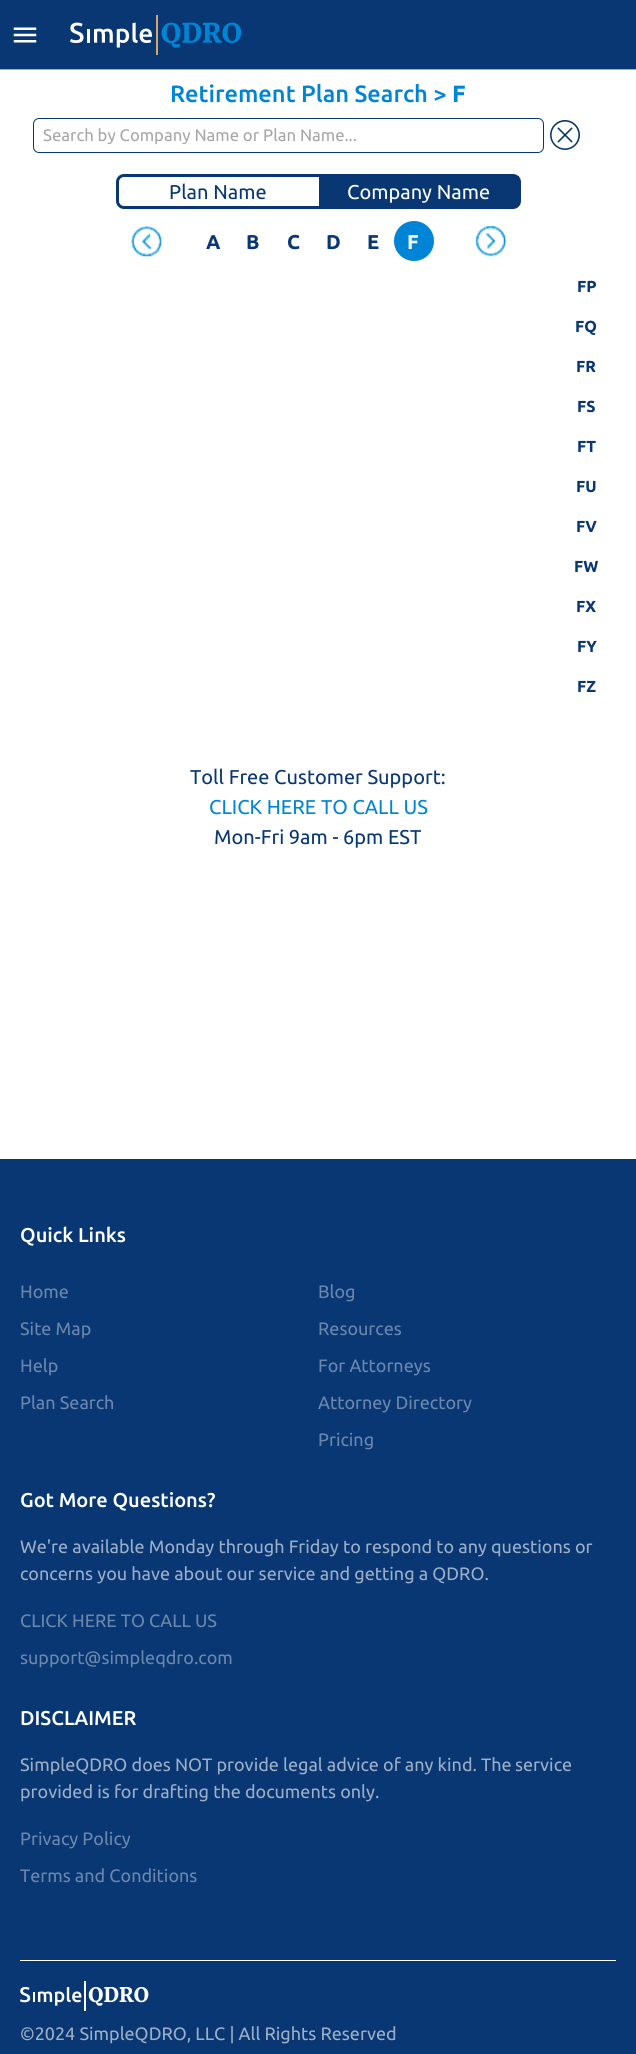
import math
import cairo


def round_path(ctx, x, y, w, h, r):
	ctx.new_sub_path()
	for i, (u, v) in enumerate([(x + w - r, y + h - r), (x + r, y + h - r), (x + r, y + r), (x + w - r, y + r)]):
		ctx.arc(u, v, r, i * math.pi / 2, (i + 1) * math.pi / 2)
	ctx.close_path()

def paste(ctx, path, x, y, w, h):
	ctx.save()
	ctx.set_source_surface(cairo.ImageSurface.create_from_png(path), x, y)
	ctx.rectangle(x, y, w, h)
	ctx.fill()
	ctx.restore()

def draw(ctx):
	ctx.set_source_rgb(1, 1, 1)
	ctx.paint()
	ctx.set_source_rgb(0.035, 0.216, 0.455)
	ctx.rectangle(0, 0, 636, 69)
	ctx.fill()
	ctx.set_source_rgb(0.831, 0.655, 0.424)
	ctx.rectangle(0, 69, 636, 1)
	ctx.fill()
	paste(ctx, 'media/1.png', 13, 27, 24, 16)
	paste(ctx, 'media/2.png', 70, 15, 171, 40)
	ctx.select_font_face('Ubuntu Medium')
	ctx.set_font_size(23.6)
	ctx.set_source_rgb(0, 0.522, 0.839)
	ctx.move_to(170, 102)
	ctx.show_text('Retirement Plan Search >')
	ctx.select_font_face('Ubuntu', cairo.FONT_SLANT_NORMAL, cairo.FONT_WEIGHT_BOLD)
	ctx.move_to(452, 102)
	ctx.show_text('F')
	round_path(ctx, 33.5, 118.5, 510, 34, 5.5)
	ctx.set_source_rgb(0.035, 0.216, 0.455)
	ctx.set_line_width(1)
	ctx.stroke()
	ctx.select_font_face('Ubuntu')
	ctx.set_font_size(16.7)
	ctx.set_source_rgb(0.651, 0.651, 0.651)
	ctx.move_to(43, 141)
	ctx.show_text('Search by Company Name or Plan Name...')
	paste(ctx, 'media/3.png', 550, 120, 30, 30)
	round_path(ctx, 117.5, 175.5, 402, 32, 6.5)
	ctx.set_source_rgb(0.035, 0.216, 0.455)
	ctx.set_line_width(3)
	ctx.stroke()
	ctx.set_font_size(20)
	ctx.move_to(169, 199)
	ctx.show_text('Plan Name')
	ctx.rectangle(319, 176, 200, 30)
	ctx.fill()
	ctx.set_source_rgb(1, 1, 1)
	ctx.move_to(347, 199)
	ctx.show_text('Company Name')
	paste(ctx, 'media/4.png', 131, 226, 31, 31)
	ctx.select_font_face('Ubuntu', cairo.FONT_SLANT_NORMAL, cairo.FONT_WEIGHT_BOLD)
	ctx.set_source_rgb(0.035, 0.216, 0.455)
	for x, y, s in [
		(206, 249, 'A'),
		(246, 249, 'B'),
		(287, 249, 'C'),
		(326, 249, 'D'),
		(367, 249, 'E'),
	]:
		ctx.move_to(x, y)
		ctx.show_text(s)
	ctx.set_source_rgb(0, 0.522, 0.839)
	ctx.new_path()
	ctx.arc(414, 241, 20, 0, 2 * math.pi)
	ctx.fill()
	ctx.set_source_rgb(1, 1, 1)
	ctx.move_to(407, 249)
	ctx.show_text('F')
	paste(ctx, 'media/5.png', 476, 226, 31, 31)
	ctx.set_font_size(16)
	ctx.set_source_rgb(0.035, 0.216, 0.455)
	for x, y, s in [
		(577, 292, 'FP'),
		(575, 332, 'FQ'),
		(576, 372, 'FR'),
		(577, 412, 'FS'),
		(577, 452, 'FT'),
		(576, 492, 'FU'),
		(576, 532, 'FV'),
		(574, 572, 'FW'),
		(576, 612, 'FX'),
		(577, 652, 'FY'),
		(577, 692, 'FZ'),
	]:
		ctx.move_to(x, y)
		ctx.show_text(s)
	ctx.select_font_face('Ubuntu')
	ctx.set_font_size(20)
	ctx.move_to(190, 784)
	ctx.show_text('Toll Free Customer Support:')
	ctx.set_source_rgb(0, 0.522, 0.839)
	ctx.move_to(209, 814)
	ctx.show_text('CLICK HERE TO CALL US')
	ctx.set_source_rgb(0.035, 0.216, 0.455)
	ctx.move_to(214, 844)
	ctx.show_text('Mon-Fri 9am - 6pm EST')
	ctx.rectangle(0, 1159, 636, 895)
	ctx.fill()
	ctx.select_font_face('Ubuntu Medium')
	ctx.set_source_rgb(1, 1, 1)
	ctx.move_to(20, 1242)
	ctx.show_text('Quick Links')
	ctx.select_font_face('Ubuntu')
	ctx.set_font_size(18)
	ctx.set_source_rgb(0.42, 0.529, 0.675)
	for x, y, s in [
		(20, 1298, 'Home'),
		(20, 1335, 'Site Map'),
		(20, 1372, 'Help'),
		(20, 1409, 'Plan Search'),
		(318, 1298, 'Blog'),
		(318, 1335, 'Resources'),
		(318, 1372, 'For Attorneys'),
		(318, 1409, 'Attorney Directory'),
		(318, 1446, 'Pricing'),
	]:
		ctx.move_to(x, y)
		ctx.show_text(s)
	ctx.select_font_face('Ubuntu Medium')
	ctx.set_font_size(20)
	ctx.set_source_rgb(1, 1, 1)
	ctx.move_to(20, 1507)
	ctx.show_text('Got More Questions?')
	ctx.select_font_face('Ubuntu')
	ctx.set_font_size(18)
	ctx.set_source_rgb(0.616, 0.686, 0.78)
	for x, y, s in [
		(20, 1553, 'We\'re available Monday through Friday to respond to any'),
		(491, 1553, 'questions or'),
		(20, 1580, 'concerns you have about our service and getting a QDRO.'),
	]:
		ctx.move_to(x, y)
		ctx.show_text(s)
	ctx.set_source_rgb(0.42, 0.529, 0.675)
	ctx.move_to(20, 1627)
	ctx.show_text('CLICK HERE TO CALL US')
	ctx.move_to(20, 1664)
	ctx.show_text('support@simpleqdro.com')
	ctx.select_font_face('Ubuntu Medium')
	ctx.set_font_size(20)
	ctx.set_source_rgb(1, 1, 1)
	ctx.move_to(20, 1725)
	ctx.show_text('DISCLAIMER')
	ctx.select_font_face('Ubuntu')
	ctx.set_font_size(18)
	ctx.set_source_rgb(0.616, 0.686, 0.78)
	for x, y, s in [
		(20, 1771, 'SimpleQDRO does NOT provide legal advice of any kind. The'),
		(515, 1771, 'service'),
		(20, 1798, 'provided is for drafting the documents only.'),
	]:
		ctx.move_to(x, y)
		ctx.show_text(s)
	ctx.set_source_rgb(0.42, 0.529, 0.675)
	ctx.move_to(20, 1845)
	ctx.show_text('Privacy Policy')
	ctx.move_to(20, 1882)
	ctx.show_text('Terms and Conditions')
	ctx.set_source_rgb(1, 1, 1)
	ctx.rectangle(20, 1960, 596, 1)
	ctx.fill()
	paste(ctx, 'media/6.png', 20, 1981, 129, 30)
	ctx.set_source_rgb(0.616, 0.686, 0.78)
	ctx.move_to(20, 2040)
	ctx.show_text('©2024 SimpleQDRO, LLC | All Rights Reserved')


surface = cairo.ImageSurface(cairo.FORMAT_RGB24, 636, 2054)
ctx = cairo.Context(surface)
options = cairo.FontOptions()
options.set_hint_metrics(cairo.HINT_METRICS_OFF)
options.set_hint_style(cairo.HINT_STYLE_NONE)
ctx.set_font_options(options)
ctx.set_miter_limit(4)
draw(ctx)
surface.write_to_png('image.png')
